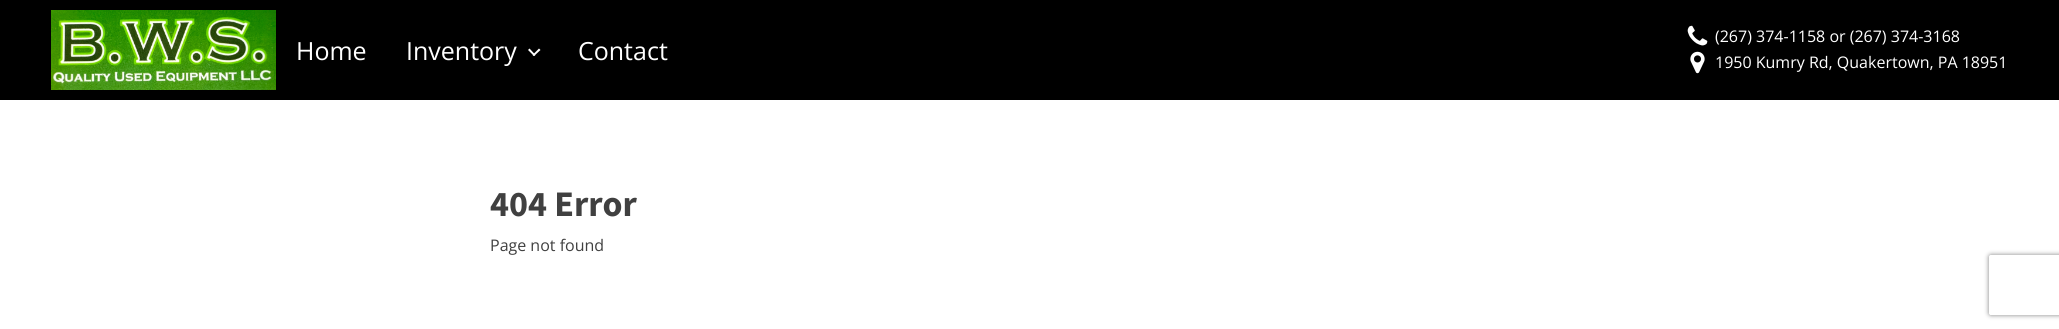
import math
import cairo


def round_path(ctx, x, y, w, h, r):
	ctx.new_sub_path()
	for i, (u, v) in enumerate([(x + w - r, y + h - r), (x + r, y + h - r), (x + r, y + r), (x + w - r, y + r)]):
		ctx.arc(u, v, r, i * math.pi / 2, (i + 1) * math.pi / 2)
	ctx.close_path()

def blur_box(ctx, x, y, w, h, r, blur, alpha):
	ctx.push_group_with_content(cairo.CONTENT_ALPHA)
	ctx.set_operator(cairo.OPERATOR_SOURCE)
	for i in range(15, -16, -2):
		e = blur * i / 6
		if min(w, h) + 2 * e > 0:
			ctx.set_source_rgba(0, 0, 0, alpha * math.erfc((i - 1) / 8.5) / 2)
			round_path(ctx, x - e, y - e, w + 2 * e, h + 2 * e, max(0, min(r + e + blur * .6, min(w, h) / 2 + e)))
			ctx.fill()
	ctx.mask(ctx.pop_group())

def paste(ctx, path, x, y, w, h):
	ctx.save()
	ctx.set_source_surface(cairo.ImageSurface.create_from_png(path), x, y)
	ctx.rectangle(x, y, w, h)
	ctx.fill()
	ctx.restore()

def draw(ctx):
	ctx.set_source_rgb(1, 1, 1)
	ctx.paint()
	ctx.set_source_rgb(0, 0, 0)
	ctx.rectangle(0, 0, 2059, 100)
	ctx.fill()
	paste(ctx, 'media/1.png', 51, 10, 225, 80)
	ctx.select_font_face('Open Sans')
	ctx.set_font_size(25)
	ctx.set_source_rgb(1, 1, 1)
	ctx.move_to(296, 60)
	ctx.show_text('Home')
	ctx.move_to(406, 60)
	ctx.show_text('Inventory')
	ctx.new_path()
	ctx.move_to(540.5, 50)
	ctx.line_to(534, 56)
	ctx.line_to(532.5, 55)
	ctx.line_to(539, 48.5)
	ctx.close_path()
	ctx.fill()
	ctx.new_path()
	ctx.move_to(535.5, 55)
	ctx.line_to(534, 56)
	ctx.line_to(528, 50)
	ctx.line_to(529.5, 48.5)
	ctx.close_path()
	ctx.fill()
	ctx.move_to(578, 60)
	ctx.show_text('Contact')
	paste(ctx, 'media/2.png', 1687, 25, 21, 21)
	ctx.set_font_size(16)
	ctx.move_to(1715, 42)
	ctx.show_text('(267) 374-1158 or (267) 374-3168')
	paste(ctx, 'media/3.png', 1690, 51, 15, 23)
	ctx.move_to(1715, 68)
	ctx.show_text('1950 Kumry Rd, Quakertown, PA 18951')
	ctx.select_font_face('Source Sans Pro', cairo.FONT_SLANT_NORMAL, cairo.FONT_WEIGHT_BOLD)
	ctx.set_font_size(36)
	ctx.set_source_rgb(0.251, 0.251, 0.251)
	ctx.move_to(490, 216)
	ctx.show_text('404 Error')
	ctx.select_font_face('Open Sans')
	ctx.set_font_size(16)
	ctx.move_to(490, 251)
	ctx.show_text('Page not found')
	ctx.save()
	ctx.set_fill_rule(cairo.FILL_RULE_EVEN_ODD)
	ctx.new_path()
	ctx.move_to(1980, 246)
	ctx.line_to(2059, 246)
	ctx.line_to(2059, 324)
	ctx.line_to(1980, 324)
	ctx.close_path()
	ctx.move_to(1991, 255)
	ctx.line_to(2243, 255)
	ctx.curve_to(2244, 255, 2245, 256, 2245, 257)
	ctx.line_to(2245, 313)
	ctx.curve_to(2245, 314, 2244, 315, 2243, 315)
	ctx.line_to(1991, 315)
	ctx.curve_to(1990, 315, 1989, 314, 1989, 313)
	ctx.line_to(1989, 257)
	ctx.curve_to(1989, 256, 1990, 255, 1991, 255)
	ctx.close_path()
	ctx.clip()
	ctx.set_source_rgb(0.502, 0.502, 0.502)
	blur_box(ctx, 1989, 255, 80, 60, 2, 2.5, 1)
	ctx.restore()


surface = cairo.ImageSurface(cairo.FORMAT_RGB24, 2059, 329)
ctx = cairo.Context(surface)
options = cairo.FontOptions()
options.set_hint_metrics(cairo.HINT_METRICS_OFF)
options.set_hint_style(cairo.HINT_STYLE_NONE)
ctx.set_font_options(options)
ctx.set_miter_limit(4)
draw(ctx)
surface.write_to_png('image.png')
